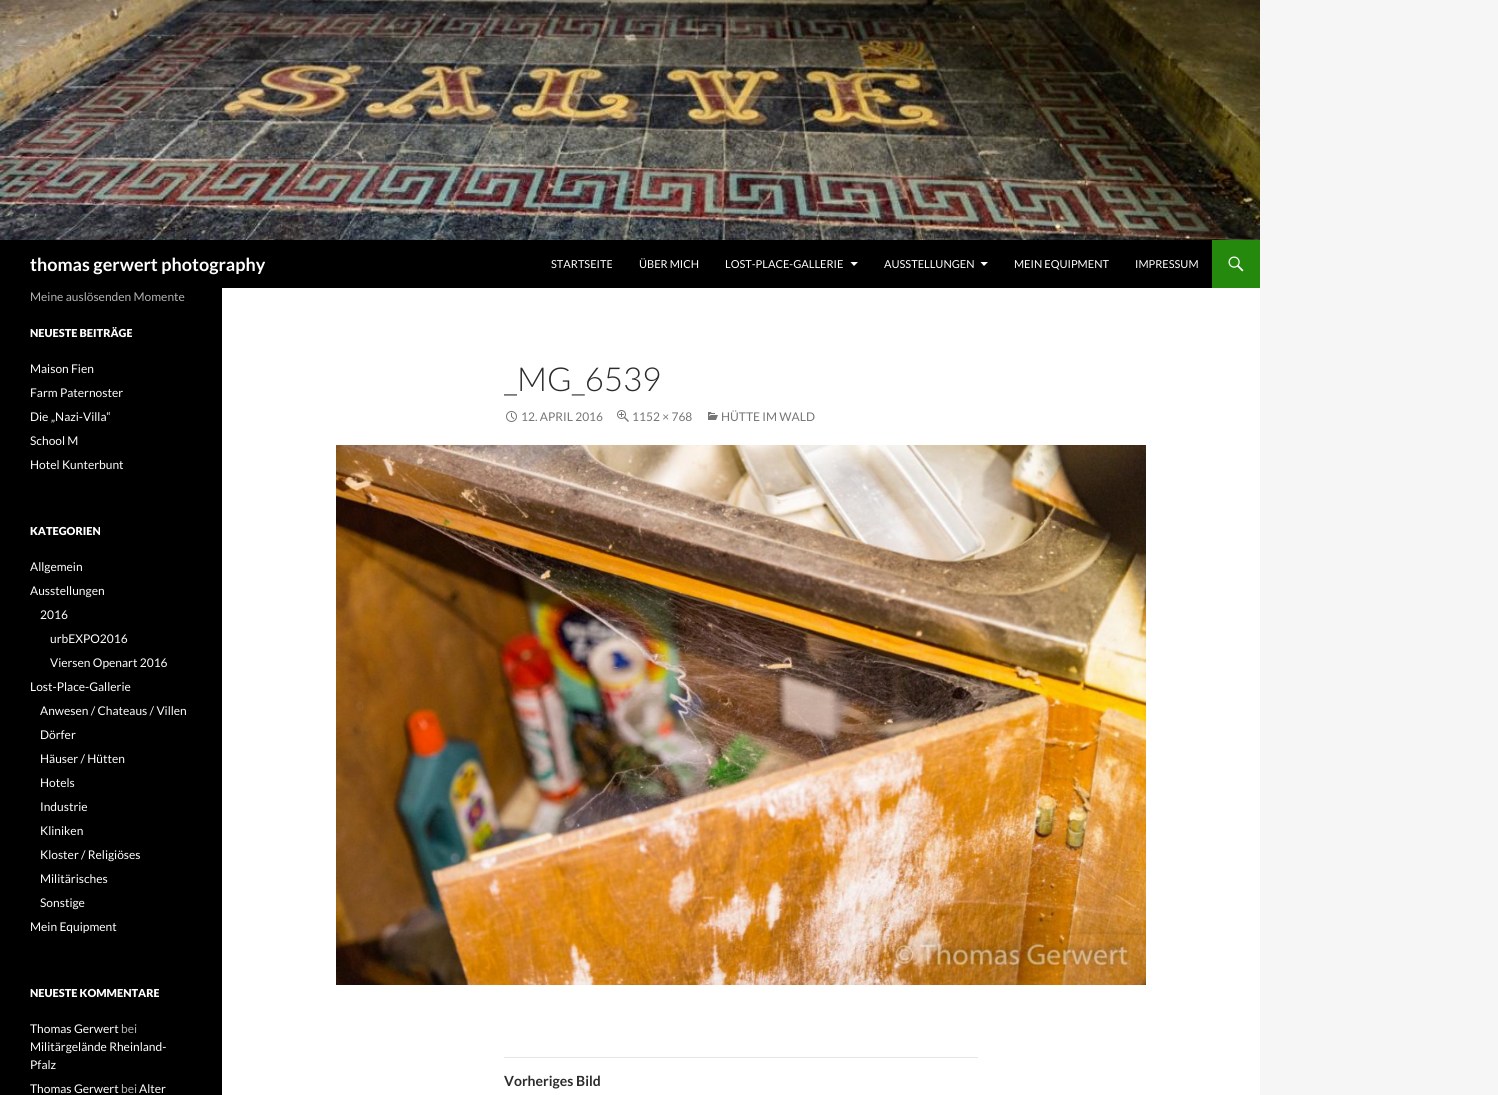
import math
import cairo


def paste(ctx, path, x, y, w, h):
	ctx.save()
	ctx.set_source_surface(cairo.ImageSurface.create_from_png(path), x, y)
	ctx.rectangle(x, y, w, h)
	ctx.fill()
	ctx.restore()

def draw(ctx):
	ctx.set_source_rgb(0.961, 0.961, 0.961)
	ctx.paint()
	ctx.set_source_rgb(1, 1, 1)
	ctx.rectangle(222, 288, 1038, 807)
	ctx.fill()
	paste(ctx, 'media/1.png', 0, 0, 1260, 240)
	ctx.set_source_rgb(0, 0, 0)
	ctx.rectangle(0, 240, 1212, 48)
	ctx.fill()
	ctx.select_font_face('Lato', cairo.FONT_SLANT_NORMAL, cairo.FONT_WEIGHT_BOLD)
	ctx.set_font_size(18)
	ctx.set_source_rgb(1, 1, 1)
	ctx.move_to(30, 271)
	ctx.show_text('thomas gerwert photography')
	ctx.select_font_face('Lato')
	ctx.set_font_size(11)
	for x, y, s in [
		(551, 268, 'STARTSEITE'),
		(639, 268, 'ÜBER MICH'),
		(725, 268, 'LOST-PLACE-GALLERIE'),
	]:
		ctx.move_to(x, y)
		ctx.show_text(s)
	ctx.new_path()
	ctx.move_to(850.5, 262)
	ctx.line_to(854, 266)
	ctx.line_to(858, 262)
	ctx.close_path()
	ctx.fill()
	ctx.move_to(884, 268)
	ctx.show_text('AUSSTELLUNGEN')
	ctx.new_path()
	ctx.move_to(980.5, 262)
	ctx.line_to(984, 266)
	ctx.line_to(988, 262)
	ctx.close_path()
	ctx.fill()
	ctx.move_to(1014, 268)
	ctx.show_text('MEIN EQUIPMENT')
	ctx.move_to(1135, 268)
	ctx.show_text('IMPRESSUM')
	ctx.set_source_rgb(0.141, 0.537, 0.051)
	ctx.rectangle(1212, 240, 48, 48)
	ctx.fill()
	paste(ctx, 'media/2.png', 1228, 256, 16, 16)
	ctx.set_source_rgb(0, 0, 0)
	ctx.rectangle(0, 288, 222, 807)
	ctx.fill()
	ctx.set_font_size(12)
	ctx.set_source_rgb(0.702, 0.702, 0.702)
	ctx.move_to(30, 301)
	ctx.show_text('Meine auslösenden Momente')
	ctx.select_font_face('Lato Black')
	ctx.set_font_size(11)
	ctx.set_source_rgb(1, 1, 1)
	ctx.move_to(30, 337)
	ctx.show_text('NEUESTE BEITRÄGE')
	ctx.select_font_face('Lato')
	ctx.set_font_size(12)
	for x, y, s in [
		(30, 373, 'Maison Fien'),
		(30, 397, 'Farm Paternoster'),
		(30, 421, 'Die „Nazi-Villa“'),
		(30, 445, 'School M'),
		(30, 469, 'Hotel Kunterbunt'),
	]:
		ctx.move_to(x, y)
		ctx.show_text(s)
	ctx.select_font_face('Lato Black')
	ctx.set_font_size(11)
	ctx.move_to(30, 535)
	ctx.show_text('KATEGORIEN')
	ctx.select_font_face('Lato')
	ctx.set_font_size(12)
	for x, y, s in [
		(30, 571, 'Allgemein'),
		(30, 595, 'Ausstellungen'),
		(40, 619, '2016'),
		(50, 643, 'urbEXPO2016'),
		(50, 667, 'Viersen Openart 2016'),
		(30, 691, 'Lost-Place-Gallerie'),
		(40, 715, 'Anwesen / Chateaus / Villen'),
		(40, 739, 'Dörfer'),
		(40, 763, 'Häuser / Hütten'),
		(40, 787, 'Hotels'),
		(40, 811, 'Industrie'),
		(40, 835, 'Kliniken'),
		(40, 859, 'Kloster / Religiöses'),
		(40, 883, 'Militärisches'),
		(40, 907, 'Sonstige'),
		(30, 931, 'Mein Equipment'),
	]:
		ctx.move_to(x, y)
		ctx.show_text(s)
	ctx.select_font_face('Lato Black')
	ctx.set_font_size(11)
	ctx.move_to(30, 997)
	ctx.show_text('NEUESTE KOMMENTARE')
	ctx.select_font_face('Lato')
	ctx.set_font_size(12)
	ctx.move_to(30, 1033)
	ctx.show_text('Thomas Gerwert')
	ctx.set_source_rgb(0.702, 0.702, 0.702)
	ctx.move_to(121, 1033)
	ctx.show_text('bei')
	ctx.set_source_rgb(1, 1, 1)
	for x, y, s in [
		(30, 1051, 'Militärgelände Rheinland-'),
		(30, 1069, 'Pfalz'),
		(30, 1093, 'Thomas Gerwert'),
	]:
		ctx.move_to(x, y)
		ctx.show_text(s)
	ctx.set_source_rgb(0.702, 0.702, 0.702)
	ctx.move_to(121, 1093)
	ctx.show_text('bei')
	ctx.set_source_rgb(1, 1, 1)
	ctx.move_to(139, 1093)
	ctx.show_text('Alter')
	ctx.select_font_face('Lato Light')
	ctx.set_font_size(33)
	ctx.set_source_rgb(0.169, 0.169, 0.169)
	ctx.move_to(504, 391)
	ctx.show_text('_MG_6539')
	paste(ctx, 'media/3.png', 506, 411, 11, 11)
	ctx.select_font_face('Lato')
	ctx.set_font_size(12)
	ctx.set_source_rgb(0.463, 0.463, 0.463)
	ctx.move_to(521, 421)
	ctx.show_text('12. APRIL 2016')
	paste(ctx, 'media/4.png', 617, 410, 12, 12)
	ctx.move_to(632, 421)
	ctx.show_text('1152 × 768')
	paste(ctx, 'media/5.png', 708, 412, 10, 8)
	ctx.move_to(721, 421)
	ctx.show_text('HÜTTE IM WALD')
	paste(ctx, 'media/6.png', 336, 445, 810, 540)
	ctx.set_source_rgb(0.902, 0.902, 0.902)
	ctx.rectangle(504, 1057, 474, 1)
	ctx.fill()
	ctx.select_font_face('Lato', cairo.FONT_SLANT_NORMAL, cairo.FONT_WEIGHT_BOLD)
	ctx.set_font_size(14)
	ctx.set_source_rgb(0.169, 0.169, 0.169)
	ctx.move_to(504, 1086)
	ctx.show_text('Vorheriges Bild')


surface = cairo.ImageSurface(cairo.FORMAT_RGB24, 1498, 1095)
ctx = cairo.Context(surface)
options = cairo.FontOptions()
options.set_hint_metrics(cairo.HINT_METRICS_OFF)
options.set_hint_style(cairo.HINT_STYLE_NONE)
ctx.set_font_options(options)
ctx.set_miter_limit(4)
draw(ctx)
surface.write_to_png('image.png')
